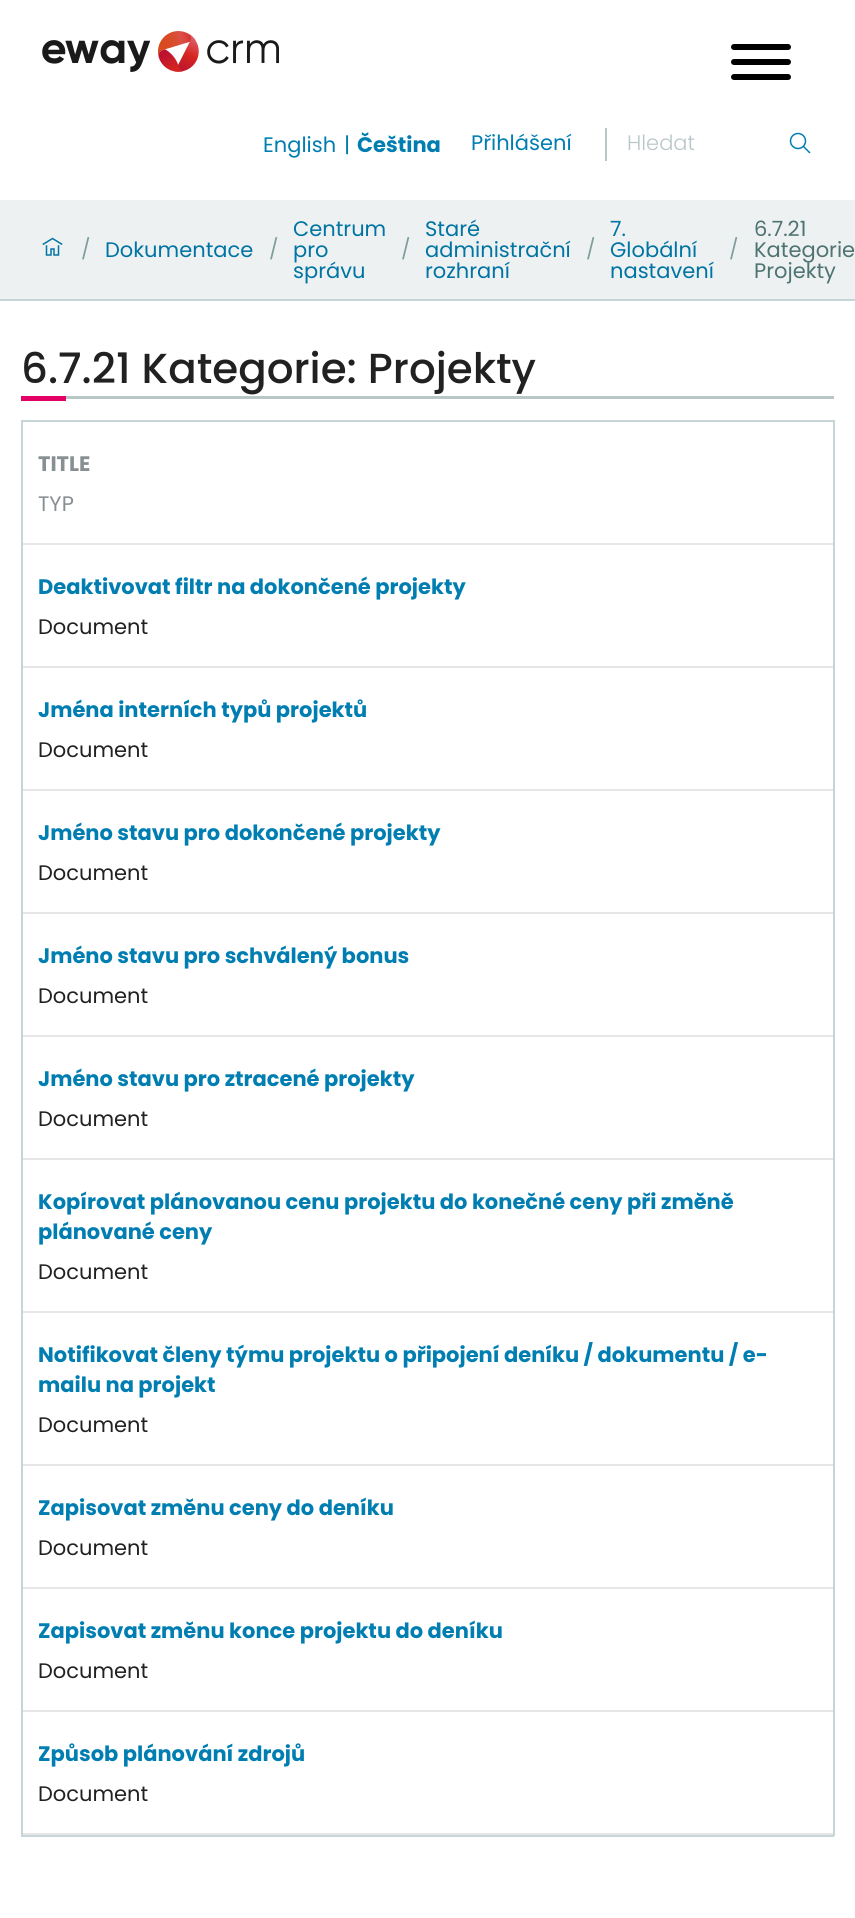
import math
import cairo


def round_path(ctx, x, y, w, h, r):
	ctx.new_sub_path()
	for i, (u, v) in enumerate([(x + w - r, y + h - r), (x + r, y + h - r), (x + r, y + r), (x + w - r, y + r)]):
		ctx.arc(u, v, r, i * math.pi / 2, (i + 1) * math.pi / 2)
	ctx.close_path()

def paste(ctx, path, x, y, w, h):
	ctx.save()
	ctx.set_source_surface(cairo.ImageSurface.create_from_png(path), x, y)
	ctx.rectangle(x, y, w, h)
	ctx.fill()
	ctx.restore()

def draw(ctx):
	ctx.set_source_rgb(1, 1, 1)
	ctx.paint()
	paste(ctx, 'media/1.png', 42, 31, 237, 41)
	ctx.set_source_rgb(0, 0, 0)
	round_path(ctx, 731, 59, 60, 6, 3)
	ctx.fill()
	round_path(ctx, 731, 44, 60, 6, 3)
	ctx.fill()
	round_path(ctx, 731, 74, 60, 6, 3)
	ctx.fill()
	ctx.select_font_face('Poppins')
	ctx.set_font_size(21)
	ctx.set_source_rgb(0, 0.494, 0.694)
	ctx.move_to(263, 152)
	ctx.show_text('English')
	ctx.move_to(344, 152)
	ctx.show_text('|')
	ctx.select_font_face('Poppins', cairo.FONT_SLANT_NORMAL, cairo.FONT_WEIGHT_BOLD)
	ctx.move_to(357, 152)
	ctx.show_text('Čeština')
	ctx.select_font_face('Poppins')
	ctx.move_to(471, 150)
	ctx.show_text('Přihlášení')
	ctx.set_source_rgb(0.722, 0.776, 0.784)
	ctx.rectangle(605, 128, 2, 33)
	ctx.fill()
	ctx.select_font_face('Poppins Light')
	ctx.move_to(627, 150)
	ctx.show_text('Hledat')
	paste(ctx, 'media/2.png', 789, 132, 22, 22)
	ctx.set_source_rgb(0.929, 0.945, 0.949)
	ctx.rectangle(0, 200, 855, 99)
	ctx.fill()
	ctx.set_source_rgb(0.78, 0.835, 0.847)
	ctx.rectangle(0, 299, 855, 2)
	ctx.fill()
	paste(ctx, 'media/3.png', 42, 237, 21, 19)
	ctx.select_font_face('Poppins')
	ctx.set_font_size(20)
	ctx.set_source_rgb(0.502, 0.612, 0.608)
	ctx.move_to(81, 256)
	ctx.show_text('/')
	ctx.set_font_size(21)
	ctx.set_source_rgb(0, 0.455, 0.639)
	ctx.move_to(105, 257)
	ctx.show_text('Dokumentace')
	ctx.set_font_size(20)
	ctx.set_source_rgb(0.502, 0.612, 0.608)
	ctx.move_to(269, 256)
	ctx.show_text('/')
	ctx.set_font_size(21)
	ctx.set_source_rgb(0, 0.455, 0.639)
	for x, y, s in [
		(293, 236, 'Centrum'),
		(293, 257, 'pro'),
		(293, 278, 'správu'),
	]:
		ctx.move_to(x, y)
		ctx.show_text(s)
	ctx.set_font_size(20)
	ctx.set_source_rgb(0.502, 0.612, 0.608)
	ctx.move_to(401, 256)
	ctx.show_text('/')
	ctx.set_font_size(21)
	ctx.set_source_rgb(0, 0.455, 0.639)
	for x, y, s in [
		(425, 236, 'Staré'),
		(425, 257, 'administrační'),
		(425, 278, 'rozhraní'),
	]:
		ctx.move_to(x, y)
		ctx.show_text(s)
	ctx.set_font_size(20)
	ctx.set_source_rgb(0.502, 0.612, 0.608)
	ctx.move_to(586, 256)
	ctx.show_text('/')
	ctx.set_font_size(21)
	ctx.set_source_rgb(0, 0.455, 0.639)
	for x, y, s in [
		(610, 236, '7.'),
		(610, 257, 'Globální'),
		(610, 278, 'nastavení'),
	]:
		ctx.move_to(x, y)
		ctx.show_text(s)
	ctx.set_font_size(20)
	ctx.set_source_rgb(0.502, 0.612, 0.608)
	ctx.move_to(729, 256)
	ctx.show_text('/')
	ctx.set_font_size(21)
	ctx.set_source_rgb(0.306, 0.451, 0.447)
	for x, y, s in [
		(754, 236, '6.7.21'),
		(754, 257, 'Kategorie'),
		(754, 278, 'Projekty'),
	]:
		ctx.move_to(x, y)
		ctx.show_text(s)
	ctx.set_source_rgb(0.722, 0.776, 0.784)
	ctx.rectangle(66, 396, 768, 3)
	ctx.fill()
	ctx.select_font_face('Poppins Medium')
	ctx.set_font_size(42)
	ctx.set_source_rgb(0.129, 0.129, 0.129)
	ctx.move_to(21, 383)
	ctx.show_text('6.7.21 Kategorie: Projekty')
	ctx.set_source_rgb(0.894, 0.004, 0.4)
	ctx.rectangle(21, 396, 45, 5)
	ctx.fill()
	ctx.set_source_rgb(0.78, 0.835, 0.847)
	ctx.rectangle(21, 420, 813, 2)
	ctx.rectangle(833, 420, 2, 1416)
	ctx.rectangle(21, 1835, 813, 2)
	ctx.rectangle(21, 420, 2, 1416)
	ctx.fill()
	ctx.set_source_rgb(0.902, 0.902, 0.902)
	ctx.rectangle(23, 543, 810, 2)
	ctx.fill()
	ctx.select_font_face('Poppins', cairo.FONT_SLANT_NORMAL, cairo.FONT_WEIGHT_BOLD)
	ctx.set_font_size(21)
	ctx.set_source_rgb(0.529, 0.561, 0.576)
	ctx.move_to(38, 471)
	ctx.show_text('TITLE')
	ctx.select_font_face('Poppins')
	ctx.move_to(38, 511)
	ctx.show_text('TYP')
	ctx.set_source_rgb(0.902, 0.902, 0.902)
	ctx.rectangle(23, 666, 810, 2)
	ctx.fill()
	ctx.select_font_face('Poppins', cairo.FONT_SLANT_NORMAL, cairo.FONT_WEIGHT_BOLD)
	ctx.set_source_rgb(0, 0.494, 0.694)
	ctx.move_to(38, 594)
	ctx.show_text('Deaktivovat filtr na dokončené projekty')
	ctx.select_font_face('Poppins')
	ctx.set_source_rgb(0.129, 0.129, 0.129)
	ctx.move_to(38, 634)
	ctx.show_text('Document')
	ctx.set_source_rgb(0.902, 0.902, 0.902)
	ctx.rectangle(23, 789, 810, 2)
	ctx.fill()
	ctx.select_font_face('Poppins', cairo.FONT_SLANT_NORMAL, cairo.FONT_WEIGHT_BOLD)
	ctx.set_source_rgb(0, 0.494, 0.694)
	ctx.move_to(38, 717)
	ctx.show_text('Jména interních typů projektů')
	ctx.select_font_face('Poppins')
	ctx.set_source_rgb(0.129, 0.129, 0.129)
	ctx.move_to(38, 757)
	ctx.show_text('Document')
	ctx.set_source_rgb(0.902, 0.902, 0.902)
	ctx.rectangle(23, 912, 810, 2)
	ctx.fill()
	ctx.select_font_face('Poppins', cairo.FONT_SLANT_NORMAL, cairo.FONT_WEIGHT_BOLD)
	ctx.set_source_rgb(0, 0.494, 0.694)
	ctx.move_to(38, 840)
	ctx.show_text('Jméno stavu pro dokončené projekty')
	ctx.select_font_face('Poppins')
	ctx.set_source_rgb(0.129, 0.129, 0.129)
	ctx.move_to(38, 880)
	ctx.show_text('Document')
	ctx.set_source_rgb(0.902, 0.902, 0.902)
	ctx.rectangle(23, 1035, 810, 2)
	ctx.fill()
	ctx.select_font_face('Poppins', cairo.FONT_SLANT_NORMAL, cairo.FONT_WEIGHT_BOLD)
	ctx.set_source_rgb(0, 0.494, 0.694)
	ctx.move_to(38, 963)
	ctx.show_text('Jméno stavu pro schválený bonus')
	ctx.select_font_face('Poppins')
	ctx.set_source_rgb(0.129, 0.129, 0.129)
	ctx.move_to(38, 1003)
	ctx.show_text('Document')
	ctx.set_source_rgb(0.902, 0.902, 0.902)
	ctx.rectangle(23, 1158, 810, 2)
	ctx.fill()
	ctx.select_font_face('Poppins', cairo.FONT_SLANT_NORMAL, cairo.FONT_WEIGHT_BOLD)
	ctx.set_source_rgb(0, 0.494, 0.694)
	ctx.move_to(38, 1086)
	ctx.show_text('Jméno stavu pro ztracené projekty')
	ctx.select_font_face('Poppins')
	ctx.set_source_rgb(0.129, 0.129, 0.129)
	ctx.move_to(38, 1126)
	ctx.show_text('Document')
	ctx.set_source_rgb(0.902, 0.902, 0.902)
	ctx.rectangle(23, 1311, 810, 2)
	ctx.fill()
	ctx.select_font_face('Poppins', cairo.FONT_SLANT_NORMAL, cairo.FONT_WEIGHT_BOLD)
	ctx.set_source_rgb(0, 0.494, 0.694)
	ctx.move_to(38, 1209)
	ctx.show_text('Kopírovat plánovanou cenu projektu do konečné ceny při změně')
	ctx.move_to(38, 1239)
	ctx.show_text('plánované ceny')
	ctx.select_font_face('Poppins')
	ctx.set_source_rgb(0.129, 0.129, 0.129)
	ctx.move_to(38, 1279)
	ctx.show_text('Document')
	ctx.set_source_rgb(0.902, 0.902, 0.902)
	ctx.rectangle(23, 1464, 810, 2)
	ctx.fill()
	ctx.select_font_face('Poppins', cairo.FONT_SLANT_NORMAL, cairo.FONT_WEIGHT_BOLD)
	ctx.set_source_rgb(0, 0.494, 0.694)
	ctx.move_to(38, 1362)
	ctx.show_text('Notifikovat členy týmu projektu o připojení deníku / dokumentu / e-')
	ctx.move_to(38, 1392)
	ctx.show_text('mailu na projekt')
	ctx.select_font_face('Poppins')
	ctx.set_source_rgb(0.129, 0.129, 0.129)
	ctx.move_to(38, 1432)
	ctx.show_text('Document')
	ctx.set_source_rgb(0.902, 0.902, 0.902)
	ctx.rectangle(23, 1587, 810, 2)
	ctx.fill()
	ctx.select_font_face('Poppins', cairo.FONT_SLANT_NORMAL, cairo.FONT_WEIGHT_BOLD)
	ctx.set_source_rgb(0, 0.494, 0.694)
	ctx.move_to(38, 1515)
	ctx.show_text('Zapisovat změnu ceny do deníku')
	ctx.select_font_face('Poppins')
	ctx.set_source_rgb(0.129, 0.129, 0.129)
	ctx.move_to(38, 1555)
	ctx.show_text('Document')
	ctx.set_source_rgb(0.902, 0.902, 0.902)
	ctx.rectangle(23, 1710, 810, 2)
	ctx.fill()
	ctx.select_font_face('Poppins', cairo.FONT_SLANT_NORMAL, cairo.FONT_WEIGHT_BOLD)
	ctx.set_source_rgb(0, 0.494, 0.694)
	ctx.move_to(38, 1638)
	ctx.show_text('Zapisovat změnu konce projektu do deníku')
	ctx.select_font_face('Poppins')
	ctx.set_source_rgb(0.129, 0.129, 0.129)
	ctx.move_to(38, 1678)
	ctx.show_text('Document')
	ctx.set_source_rgb(0.902, 0.902, 0.902)
	ctx.rectangle(23, 1833, 810, 2)
	ctx.fill()
	ctx.select_font_face('Poppins', cairo.FONT_SLANT_NORMAL, cairo.FONT_WEIGHT_BOLD)
	ctx.set_source_rgb(0, 0.494, 0.694)
	ctx.move_to(38, 1761)
	ctx.show_text('Způsob plánování zdrojů')
	ctx.select_font_face('Poppins')
	ctx.set_source_rgb(0.129, 0.129, 0.129)
	ctx.move_to(38, 1801)
	ctx.show_text('Document')


surface = cairo.ImageSurface(cairo.FORMAT_RGB24, 855, 1918)
ctx = cairo.Context(surface)
options = cairo.FontOptions()
options.set_hint_metrics(cairo.HINT_METRICS_OFF)
options.set_hint_style(cairo.HINT_STYLE_NONE)
ctx.set_font_options(options)
ctx.set_miter_limit(4)
draw(ctx)
surface.write_to_png('image.png')
